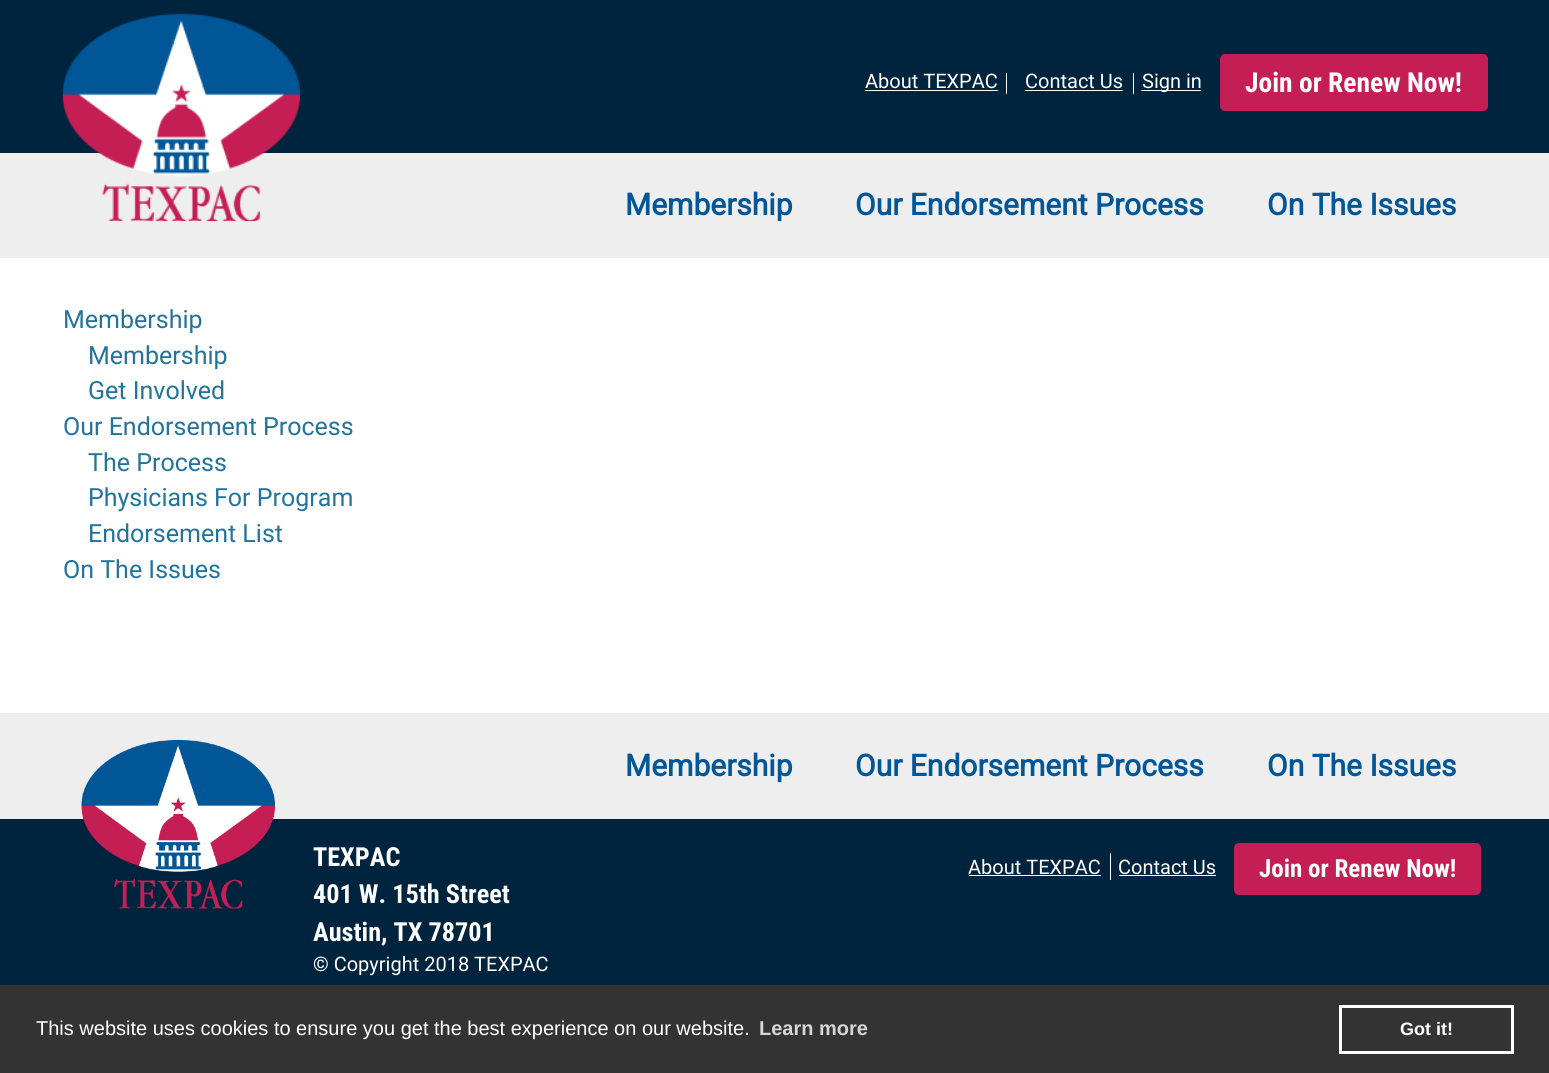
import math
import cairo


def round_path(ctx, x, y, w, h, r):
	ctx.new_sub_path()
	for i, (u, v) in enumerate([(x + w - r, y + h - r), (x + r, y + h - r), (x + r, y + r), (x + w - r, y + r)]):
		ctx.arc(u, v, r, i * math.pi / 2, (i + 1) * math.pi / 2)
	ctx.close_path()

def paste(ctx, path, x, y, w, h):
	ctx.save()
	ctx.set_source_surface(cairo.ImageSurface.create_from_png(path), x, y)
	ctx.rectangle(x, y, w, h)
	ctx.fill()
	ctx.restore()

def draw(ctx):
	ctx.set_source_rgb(1, 1, 1)
	ctx.paint()
	ctx.set_source_rgb(0, 0.141, 0.243)
	ctx.rectangle(0, 0, 1549, 153)
	ctx.fill()
	ctx.select_font_face('Roboto')
	ctx.set_font_size(20)
	ctx.set_source_rgb(1, 1, 1)
	ctx.move_to(865, 88)
	ctx.show_text('About TEXPAC')
	ctx.rectangle(865, 90, 133, 1)
	ctx.fill()
	ctx.rectangle(1006, 73, 1, 21)
	ctx.fill()
	ctx.move_to(1025, 88)
	ctx.show_text('Contact Us')
	ctx.rectangle(1025, 90, 98, 1)
	ctx.rectangle(1133, 73, 1, 21)
	ctx.rectangle(1141, 90, 60, 1)
	ctx.fill()
	ctx.move_to(1142, 88)
	ctx.show_text('Sign in')
	ctx.set_source_rgb(0.773, 0.118, 0.333)
	round_path(ctx, 1220, 54, 268, 57, 5)
	ctx.fill()
	ctx.select_font_face('Roboto Condensed', cairo.FONT_SLANT_NORMAL, cairo.FONT_WEIGHT_BOLD)
	ctx.set_font_size(27.5)
	ctx.set_source_rgb(1, 1, 1)
	ctx.move_to(1245, 92)
	ctx.show_text('Join or Renew Now!')
	ctx.set_source_rgb(0.933, 0.933, 0.933)
	ctx.rectangle(0, 153, 1549, 105)
	ctx.fill()
	paste(ctx, 'media/1.png', 62, 13, 238, 209)
	ctx.select_font_face('Roboto', cairo.FONT_SLANT_NORMAL, cairo.FONT_WEIGHT_BOLD)
	ctx.set_font_size(30)
	ctx.set_source_rgb(0, 0.337, 0.588)
	for x, y, s in [
		(625, 215, 'Membership'),
		(855, 215, 'Our Endorsement Process'),
		(1267, 215, 'On The Issues'),
	]:
		ctx.move_to(x, y)
		ctx.show_text(s)
	ctx.select_font_face('Roboto')
	ctx.set_font_size(25)
	ctx.set_source_rgb(0.137, 0.455, 0.616)
	for x, y, s in [
		(63, 328, 'Membership'),
		(88, 364, 'Membership'),
		(88, 399, 'Get Involved'),
		(63, 435, 'Our Endorsement Process'),
		(88, 471, 'The Process'),
		(88, 506, 'Physicians For Program'),
		(88, 542, 'Endorsement List'),
		(63, 578, 'On The Issues'),
	]:
		ctx.move_to(x, y)
		ctx.show_text(s)
	ctx.set_source_rgb(0.933, 0.933, 0.933)
	ctx.rectangle(0, 713, 1549, 106)
	ctx.fill()
	ctx.select_font_face('Roboto', cairo.FONT_SLANT_NORMAL, cairo.FONT_WEIGHT_BOLD)
	ctx.set_font_size(30)
	ctx.set_source_rgb(0, 0.337, 0.588)
	for x, y, s in [
		(625, 776, 'Membership'),
		(855, 776, 'Our Endorsement Process'),
		(1267, 776, 'On The Issues'),
	]:
		ctx.move_to(x, y)
		ctx.show_text(s)
	ctx.set_source_rgb(0, 0.141, 0.243)
	ctx.rectangle(0, 819, 1549, 166)
	ctx.fill()
	paste(ctx, 'media/2.png', 81, 739, 194, 170)
	ctx.select_font_face('Roboto Condensed', cairo.FONT_SLANT_NORMAL, cairo.FONT_WEIGHT_BOLD)
	ctx.set_font_size(26.25)
	ctx.set_source_rgb(1, 1, 1)
	for x, y, s in [
		(313, 866, 'TEXPAC'),
		(313, 903, '401 W. 15th Street'),
		(313, 941, 'Austin, TX 78701'),
	]:
		ctx.move_to(x, y)
		ctx.show_text(s)
	ctx.select_font_face('Roboto')
	ctx.set_font_size(20)
	ctx.move_to(313, 971)
	ctx.show_text('© Copyright 2018 TEXPAC')
	ctx.move_to(968, 874)
	ctx.show_text('About TEXPAC')
	ctx.rectangle(969, 875, 132, 1)
	ctx.fill()
	ctx.rectangle(1110, 853, 1, 27)
	ctx.fill()
	ctx.move_to(1118, 874)
	ctx.show_text('Contact Us')
	ctx.rectangle(1119, 875, 97, 1)
	ctx.fill()
	ctx.set_source_rgb(0.773, 0.118, 0.333)
	round_path(ctx, 1234, 843, 247, 52, 5)
	ctx.fill()
	ctx.select_font_face('Roboto Condensed', cairo.FONT_SLANT_NORMAL, cairo.FONT_WEIGHT_BOLD)
	ctx.set_font_size(25)
	ctx.set_source_rgb(1, 1, 1)
	ctx.move_to(1259, 877)
	ctx.show_text('Join or Renew Now!')
	ctx.set_source_rgb(0.2, 0.2, 0.2)
	ctx.rectangle(0, 985, 1549, 88)
	ctx.fill()
	ctx.select_font_face('Liberation Sans')
	ctx.set_font_size(20)
	ctx.set_source_rgb(1, 1, 1)
	ctx.move_to(36, 1035)
	ctx.show_text('This website uses cookies to ensure you get the best experience on our website.')
	ctx.select_font_face('Liberation Sans', cairo.FONT_SLANT_NORMAL, cairo.FONT_WEIGHT_BOLD)
	ctx.set_source_rgb(0.839, 0.839, 0.839)
	ctx.move_to(759, 1035)
	ctx.show_text('Learn more')
	ctx.rectangle(1340.5, 1006.5, 172, 46)
	ctx.set_source_rgb(1, 1, 1)
	ctx.set_line_width(3)
	ctx.stroke()
	ctx.set_font_size(18)
	ctx.move_to(1400, 1035)
	ctx.show_text('Got it!')


surface = cairo.ImageSurface(cairo.FORMAT_RGB24, 1549, 1073)
ctx = cairo.Context(surface)
options = cairo.FontOptions()
options.set_hint_metrics(cairo.HINT_METRICS_OFF)
options.set_hint_style(cairo.HINT_STYLE_NONE)
ctx.set_font_options(options)
ctx.set_miter_limit(4)
draw(ctx)
surface.write_to_png('image.png')
